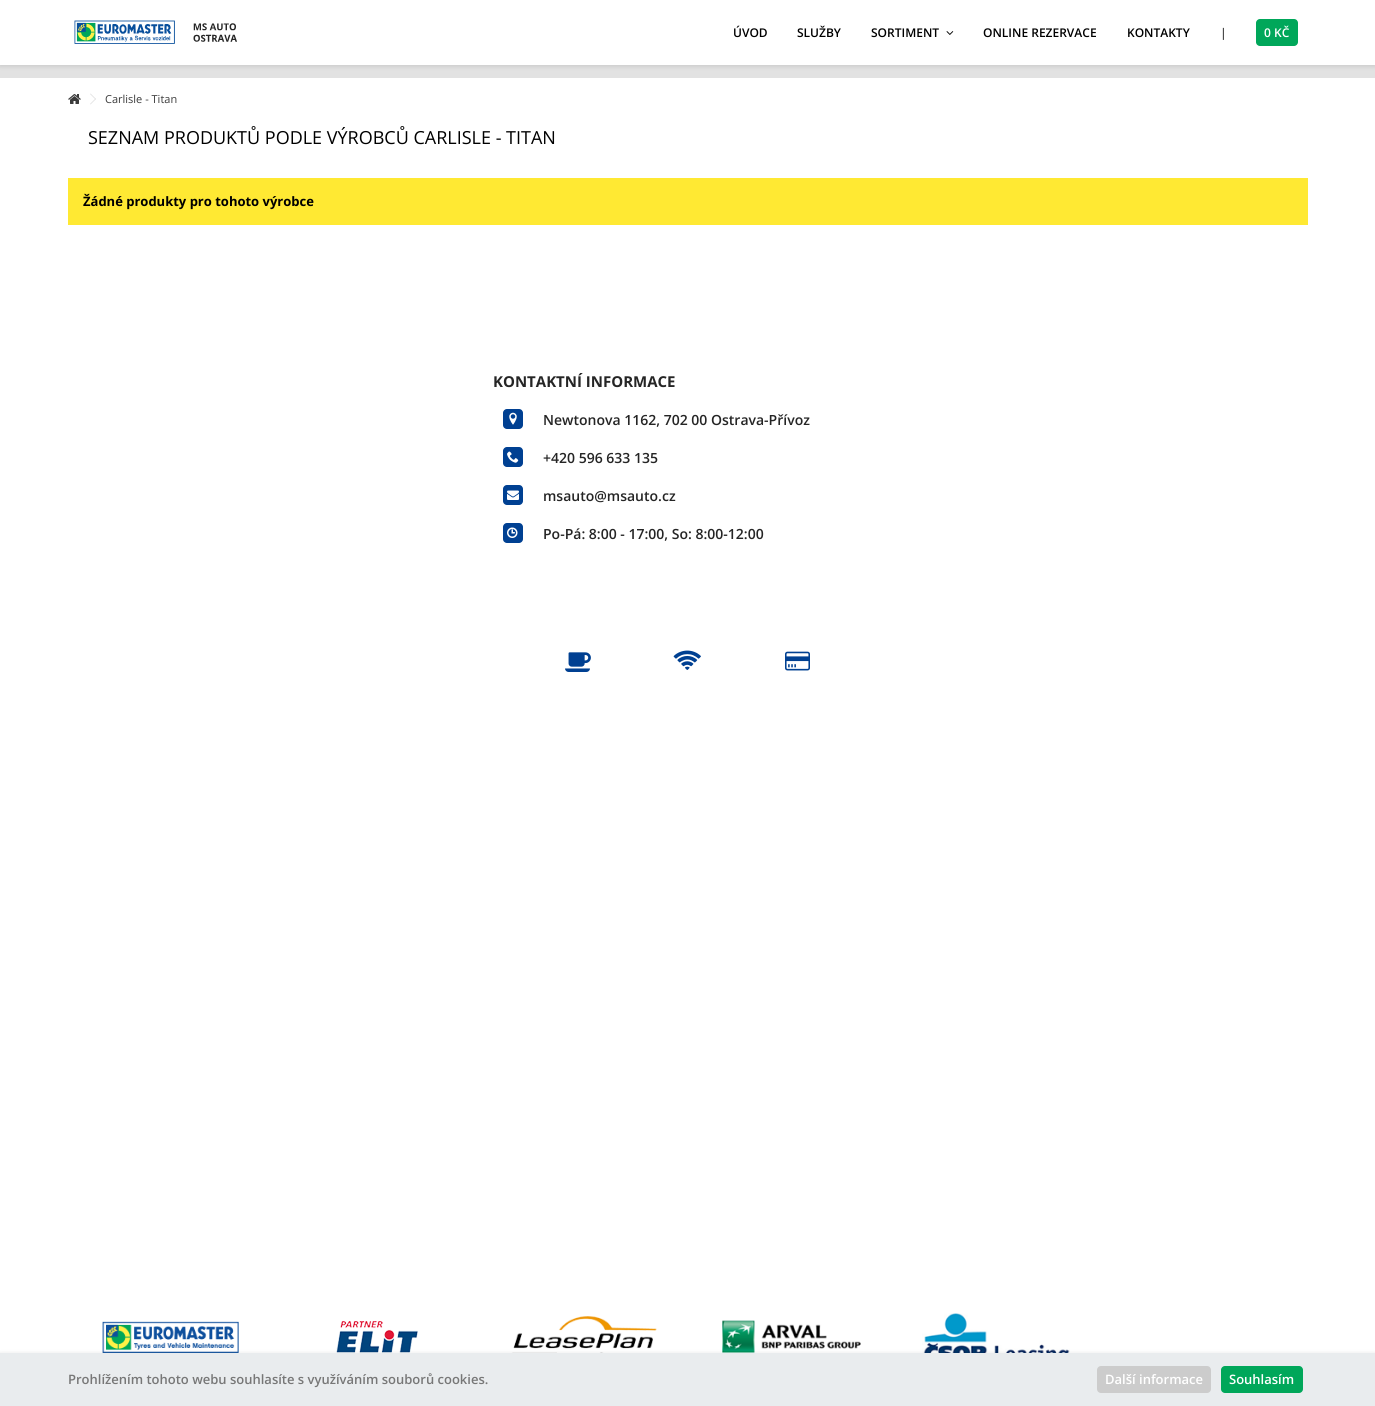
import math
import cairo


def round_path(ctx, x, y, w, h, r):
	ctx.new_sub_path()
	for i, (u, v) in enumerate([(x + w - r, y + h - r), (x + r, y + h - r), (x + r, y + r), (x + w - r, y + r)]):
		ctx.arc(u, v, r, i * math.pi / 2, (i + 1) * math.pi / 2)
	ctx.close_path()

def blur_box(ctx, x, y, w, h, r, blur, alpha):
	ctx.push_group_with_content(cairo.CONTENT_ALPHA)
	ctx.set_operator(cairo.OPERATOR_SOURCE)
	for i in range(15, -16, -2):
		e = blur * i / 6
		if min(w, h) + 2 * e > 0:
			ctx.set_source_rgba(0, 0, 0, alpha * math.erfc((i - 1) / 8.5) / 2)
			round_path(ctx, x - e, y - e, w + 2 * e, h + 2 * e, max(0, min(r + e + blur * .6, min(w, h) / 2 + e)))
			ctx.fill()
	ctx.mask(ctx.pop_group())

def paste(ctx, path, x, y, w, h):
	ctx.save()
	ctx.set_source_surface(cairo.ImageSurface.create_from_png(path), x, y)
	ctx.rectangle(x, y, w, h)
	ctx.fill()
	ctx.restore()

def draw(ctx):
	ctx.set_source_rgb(1, 1, 1)
	ctx.paint()
	ctx.set_source_rgb(0.886, 0.886, 0.886)
	ctx.rectangle(0, 65, 1375, 13)
	ctx.fill()
	ctx.set_source_rgb(0, 0, 0)
	blur_box(ctx, 0, 1, 1375, 65, 0, 2.5, 0.13)
	ctx.set_source_rgb(1, 1, 1)
	ctx.rectangle(0, 0, 1375, 65)
	ctx.fill()
	paste(ctx, 'media/1.png', 74, 20, 163, 24)
	ctx.select_font_face('Open Sans SemiBold')
	ctx.set_font_size(12)
	ctx.set_source_rgb(0, 0, 0)
	for x, y, s in [
		(733, 37, 'ÚVOD'),
		(797, 37, 'SLUŽBY'),
		(871, 37, 'SORTIMENT'),
	]:
		ctx.move_to(x, y)
		ctx.show_text(s)
	paste(ctx, 'media/2.png', 946, 31, 8, 4)
	ctx.move_to(983, 37)
	ctx.show_text('ONLINE REZERVACE')
	ctx.move_to(1127, 37)
	ctx.show_text('KONTAKTY')
	ctx.select_font_face('Open Sans')
	ctx.move_to(1220, 37)
	ctx.show_text('|')
	ctx.set_source_rgb(0, 0.655, 0.353)
	round_path(ctx, 1256, 19, 42, 27, 4)
	ctx.fill()
	ctx.select_font_face('Open Sans SemiBold')
	ctx.set_source_rgb(1, 1, 1)
	ctx.move_to(1264, 37)
	ctx.show_text('0 KČ')
	paste(ctx, 'media/3.png', 68, 94, 13, 10)
	ctx.set_source_rgb(0.867, 0.867, 0.867)
	ctx.new_path()
	ctx.move_to(90.5, 93.5)
	ctx.line_to(96, 99)
	ctx.line_to(95.5, 99.5)
	ctx.line_to(90, 94)
	ctx.close_path()
	ctx.fill()
	ctx.new_path()
	ctx.move_to(95.5, 98.5)
	ctx.line_to(96, 99)
	ctx.line_to(90.5, 104.5)
	ctx.line_to(90, 104)
	ctx.close_path()
	ctx.fill()
	ctx.select_font_face('Open Sans')
	ctx.set_font_size(11)
	ctx.set_source_rgb(0.231, 0.231, 0.231)
	ctx.move_to(105, 103)
	ctx.show_text('Carlisle - Titan')
	ctx.set_font_size(18)
	ctx.set_source_rgb(0, 0, 0)
	ctx.move_to(88, 144)
	ctx.show_text('SEZNAM PRODUKTŮ PODLE VÝROBCŮ CARLISLE - TITAN')
	ctx.set_source_rgb(1, 0.914, 0.2)
	ctx.rectangle(68, 178, 1240, 47)
	ctx.fill()
	ctx.select_font_face('Open Sans', cairo.FONT_SLANT_NORMAL, cairo.FONT_WEIGHT_BOLD)
	ctx.set_font_size(13)
	ctx.set_source_rgb(0, 0, 0)
	ctx.move_to(83, 206)
	ctx.show_text('Žádné produkty pro tohoto výrobce')
	ctx.set_font_size(15)
	ctx.set_source_rgb(0.145, 0.145, 0.145)
	ctx.move_to(493, 387)
	ctx.show_text('KONTAKTNÍ INFORMACE')
	ctx.set_source_rgb(0, 0.251, 0.573)
	round_path(ctx, 503, 409, 20, 20, 4)
	ctx.fill()
	paste(ctx, 'media/4.png', 509, 412, 8, 13)
	ctx.select_font_face('Open Sans SemiBold')
	ctx.set_font_size(14)
	ctx.set_source_rgb(0.145, 0.145, 0.145)
	ctx.move_to(543, 425)
	ctx.show_text('Newtonova 1162, 702 00 Ostrava-Přívoz')
	ctx.set_source_rgb(0, 0.251, 0.573)
	round_path(ctx, 503, 447, 20, 20, 4)
	ctx.fill()
	paste(ctx, 'media/5.png', 507, 451, 12, 12)
	ctx.set_source_rgb(0.145, 0.145, 0.145)
	ctx.move_to(543, 463)
	ctx.show_text('+420 596 633 135')
	ctx.set_source_rgb(0, 0.251, 0.573)
	round_path(ctx, 503, 485, 20, 20, 4)
	ctx.fill()
	paste(ctx, 'media/6.png', 507, 490, 12, 10)
	ctx.set_source_rgb(0.145, 0.145, 0.145)
	ctx.move_to(543, 501)
	ctx.show_text('msauto@msauto.cz')
	ctx.set_source_rgb(0, 0.251, 0.573)
	round_path(ctx, 503, 523, 20, 20, 4)
	ctx.fill()
	paste(ctx, 'media/7.png', 507, 527, 11, 11)
	ctx.set_source_rgb(0.145, 0.145, 0.145)
	ctx.move_to(543, 539)
	ctx.show_text('Po-Pá: 8:00 - 17:00, So: 8:00-12:00')
	paste(ctx, 'media/8.png', 565, 652, 26, 20)
	paste(ctx, 'media/9.png', 673, 650, 28, 20)
	paste(ctx, 'media/10.png', 785, 651, 25, 20)
	paste(ctx, 'media/11.png', 102, 1321, 137, 32)
	paste(ctx, 'media/12.png', 335, 1321, 83, 32)
	paste(ctx, 'media/13.png', 511, 1316, 146, 37)
	paste(ctx, 'media/14.png', 722, 1320, 139, 33)
	paste(ctx, 'media/15.png', 922, 1313, 148, 40)
	ctx.set_source_rgb(0, 0, 0)
	blur_box(ctx, 0, 1354, 1375, 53, 0, 2.5, 0.13)
	ctx.set_source_rgb(0.914, 0.922, 0.933)
	ctx.rectangle(0, 1353, 1375, 53)
	ctx.fill()
	ctx.set_font_size(13)
	ctx.set_source_rgb(0.467, 0.467, 0.467)
	ctx.move_to(68, 1384)
	ctx.show_text('Prohlížením tohoto webu souhlasíte s využíváním souborů cookies.')
	ctx.set_source_rgb(0.8, 0.8, 0.8)
	round_path(ctx, 1097, 1366, 114, 27, 4)
	ctx.fill()
	ctx.set_source_rgb(1, 1, 1)
	ctx.move_to(1105, 1384)
	ctx.show_text('Další informace')
	ctx.set_source_rgb(0, 0.655, 0.353)
	round_path(ctx, 1221, 1366, 82, 27, 4)
	ctx.fill()
	ctx.set_source_rgb(1, 1, 1)
	ctx.move_to(1229, 1384)
	ctx.show_text('Souhlasím')


surface = cairo.ImageSurface(cairo.FORMAT_RGB24, 1375, 1406)
ctx = cairo.Context(surface)
options = cairo.FontOptions()
options.set_hint_metrics(cairo.HINT_METRICS_OFF)
options.set_hint_style(cairo.HINT_STYLE_NONE)
ctx.set_font_options(options)
ctx.set_miter_limit(4)
draw(ctx)
surface.write_to_png('image.png')
